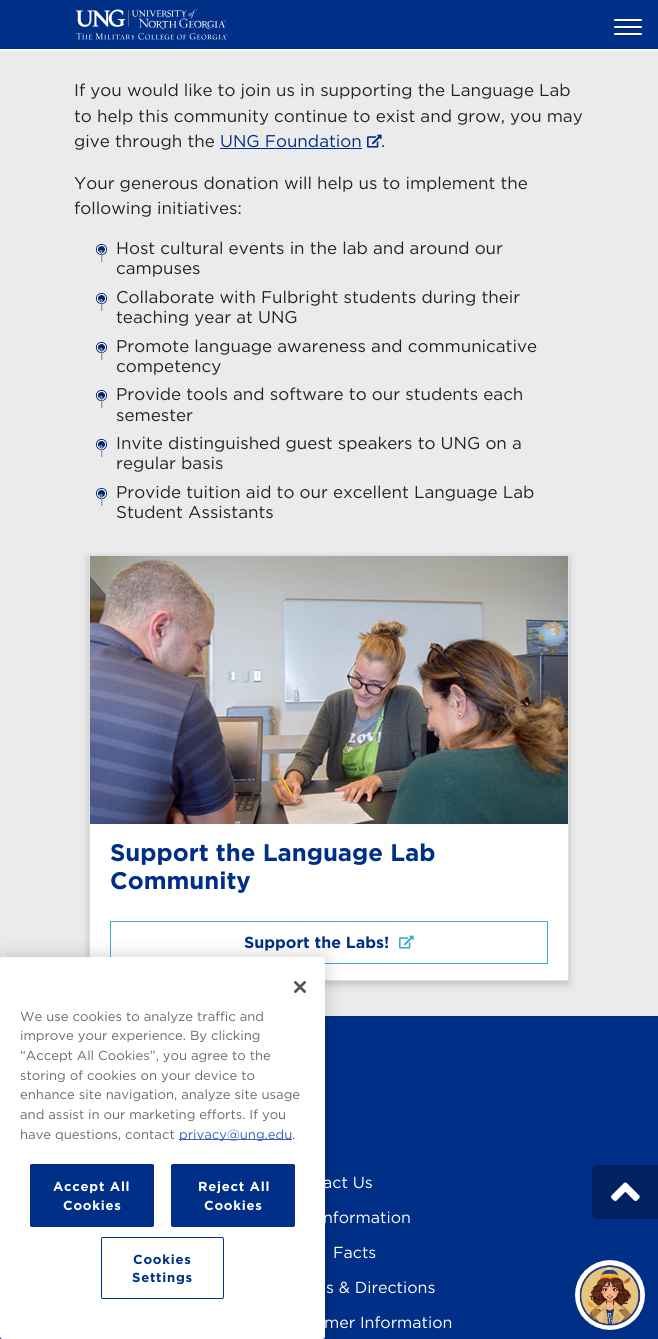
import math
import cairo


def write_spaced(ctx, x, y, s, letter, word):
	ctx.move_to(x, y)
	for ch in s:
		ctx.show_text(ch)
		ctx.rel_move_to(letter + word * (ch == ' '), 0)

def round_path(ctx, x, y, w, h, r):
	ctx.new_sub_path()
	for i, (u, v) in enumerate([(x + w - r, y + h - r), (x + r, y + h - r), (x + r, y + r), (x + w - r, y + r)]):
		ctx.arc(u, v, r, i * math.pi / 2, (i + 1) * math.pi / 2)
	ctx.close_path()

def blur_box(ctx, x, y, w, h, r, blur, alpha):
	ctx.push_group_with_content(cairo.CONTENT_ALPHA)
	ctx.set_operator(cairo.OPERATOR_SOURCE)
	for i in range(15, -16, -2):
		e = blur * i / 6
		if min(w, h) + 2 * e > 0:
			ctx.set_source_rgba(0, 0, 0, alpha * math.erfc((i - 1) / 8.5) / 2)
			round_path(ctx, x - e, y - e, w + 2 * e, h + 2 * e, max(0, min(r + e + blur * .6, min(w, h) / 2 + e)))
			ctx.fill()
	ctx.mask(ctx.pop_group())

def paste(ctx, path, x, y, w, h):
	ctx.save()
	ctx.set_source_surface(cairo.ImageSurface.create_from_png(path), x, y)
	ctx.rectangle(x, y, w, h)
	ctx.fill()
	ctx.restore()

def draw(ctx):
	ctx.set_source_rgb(0.918, 0.918, 0.918)
	ctx.paint()
	ctx.set_source_rgb(0, 0.184, 0.529)
	ctx.rectangle(0, 0, 658, 49)
	ctx.fill()
	paste(ctx, 'media/1.png', 75, 9, 152, 31)
	ctx.set_source_rgb(0, 0.137, 0.396)
	ctx.new_path()
	ctx.move_to(614, 20.5)
	ctx.curve_to(614, 21, 614, 22, 615, 22)
	ctx.line_to(641, 22)
	ctx.curve_to(642, 22, 642, 21, 642, 20.5)
	ctx.line_to(641, 21)
	ctx.line_to(615, 21)
	ctx.close_path()
	ctx.fill()
	ctx.set_source_rgb(1, 1, 1)
	round_path(ctx, 614, 19, 28, 2, 1)
	ctx.fill()
	ctx.set_source_rgb(0, 0.137, 0.396)
	ctx.new_path()
	ctx.move_to(614, 27.5)
	ctx.curve_to(614, 28, 614, 29, 615, 29)
	ctx.line_to(641, 29)
	ctx.curve_to(642, 29, 642, 28, 642, 27.5)
	ctx.line_to(641, 28)
	ctx.line_to(615, 28)
	ctx.close_path()
	ctx.fill()
	ctx.set_source_rgb(1, 1, 1)
	round_path(ctx, 614, 26, 28, 2, 1)
	ctx.fill()
	ctx.set_source_rgb(0, 0.137, 0.396)
	ctx.new_path()
	ctx.move_to(614, 34.5)
	ctx.curve_to(614, 35, 614, 36, 615, 36)
	ctx.line_to(641, 36)
	ctx.curve_to(642, 36, 642, 35, 642, 34.5)
	ctx.line_to(641, 35)
	ctx.line_to(615, 35)
	ctx.close_path()
	ctx.fill()
	ctx.set_source_rgb(1, 1, 1)
	round_path(ctx, 614, 33, 28, 2, 1)
	ctx.fill()
	ctx.rectangle(0, 49, 658, 2)
	ctx.fill()
	ctx.select_font_face('Gotham')
	ctx.set_font_size(17)
	ctx.set_source_rgb(0.137, 0.137, 0.137)
	for x, y, s in [
		(74, 96, 'If you would like to join us in supporting the Language Lab'),
		(74, 122, 'to help this community continue to exist and grow, you may'),
		(74, 147, 'give through the'),
	]:
		ctx.move_to(x, y)
		ctx.show_text(s)
	ctx.set_source_rgb(0, 0.184, 0.529)
	ctx.move_to(220, 147)
	ctx.show_text('UNG Foundation')
	ctx.rectangle(220, 148, 142, 1)
	ctx.fill()
	paste(ctx, 'media/2.png', 367, 134, 15, 14)
	ctx.set_source_rgb(0.137, 0.137, 0.137)
	for x, y, s in [
		(381, 147, '.'),
		(74, 189, 'Your generous donation will help us to implement the'),
		(74, 214, 'following initiatives:'),
	]:
		ctx.move_to(x, y)
		ctx.show_text(s)
	ctx.new_path()
	ctx.arc(101.5, 249.5, 5, 0, 2 * math.pi)
	ctx.set_source_rgb(0.004, 0.153, 0.431)
	ctx.set_line_width(1)
	ctx.stroke()
	ctx.arc(101.5, 249.5, 4, 0, 2 * math.pi)
	ctx.fill_preserve()
	ctx.set_source_rgb(1, 1, 1)
	ctx.stroke()
	ctx.set_source_rgb(0.541, 0.604, 0.722)
	ctx.move_to(98, 262)
	ctx.show_text('1')
	ctx.set_source_rgb(0.137, 0.137, 0.137)
	ctx.move_to(116, 254)
	ctx.show_text('Host cultural events in the lab and around our')
	ctx.move_to(116, 274)
	ctx.show_text('campuses')
	ctx.new_path()
	ctx.arc(101.5, 298.5, 5, 0, 2 * math.pi)
	ctx.set_source_rgb(0.004, 0.153, 0.431)
	ctx.stroke()
	ctx.arc(101.5, 298.5, 4, 0, 2 * math.pi)
	ctx.fill_preserve()
	ctx.set_source_rgb(1, 1, 1)
	ctx.stroke()
	ctx.set_source_rgb(0.541, 0.604, 0.722)
	ctx.move_to(98, 311)
	ctx.show_text('1')
	ctx.set_source_rgb(0.137, 0.137, 0.137)
	ctx.move_to(116, 303)
	ctx.show_text('Collaborate with Fulbright students during their')
	ctx.move_to(116, 323)
	ctx.show_text('teaching year at UNG')
	ctx.new_path()
	ctx.arc(101.5, 347.5, 5, 0, 2 * math.pi)
	ctx.set_source_rgb(0.004, 0.153, 0.431)
	ctx.stroke()
	ctx.arc(101.5, 347.5, 4, 0, 2 * math.pi)
	ctx.fill_preserve()
	ctx.set_source_rgb(1, 1, 1)
	ctx.stroke()
	ctx.set_source_rgb(0.541, 0.604, 0.722)
	ctx.move_to(98, 360)
	ctx.show_text('1')
	ctx.set_source_rgb(0.137, 0.137, 0.137)
	ctx.move_to(116, 352)
	ctx.show_text('Promote language awareness and communicative')
	ctx.move_to(116, 372)
	ctx.show_text('competency')
	ctx.new_path()
	ctx.arc(101.5, 395.5, 5, 0, 2 * math.pi)
	ctx.set_source_rgb(0.004, 0.153, 0.431)
	ctx.stroke()
	ctx.arc(101.5, 395.5, 4, 0, 2 * math.pi)
	ctx.fill_preserve()
	ctx.set_source_rgb(1, 1, 1)
	ctx.stroke()
	ctx.set_source_rgb(0.541, 0.604, 0.722)
	ctx.move_to(98, 408)
	ctx.show_text('1')
	ctx.set_source_rgb(0.137, 0.137, 0.137)
	ctx.move_to(116, 400)
	ctx.show_text('Provide tools and software to our students each')
	ctx.move_to(116, 421)
	ctx.show_text('semester')
	ctx.new_path()
	ctx.arc(101.5, 444.5, 5, 0, 2 * math.pi)
	ctx.set_source_rgb(0.004, 0.153, 0.431)
	ctx.stroke()
	ctx.arc(101.5, 444.5, 4, 0, 2 * math.pi)
	ctx.fill_preserve()
	ctx.set_source_rgb(1, 1, 1)
	ctx.stroke()
	ctx.set_source_rgb(0.541, 0.604, 0.722)
	ctx.move_to(98, 457)
	ctx.show_text('1')
	ctx.set_source_rgb(0.137, 0.137, 0.137)
	ctx.move_to(116, 449)
	ctx.show_text('Invite distinguished guest speakers to UNG on a')
	ctx.move_to(116, 469)
	ctx.show_text('regular basis')
	ctx.new_path()
	ctx.arc(101.5, 493.5, 5, 0, 2 * math.pi)
	ctx.set_source_rgb(0.004, 0.153, 0.431)
	ctx.stroke()
	ctx.arc(101.5, 493.5, 4, 0, 2 * math.pi)
	ctx.fill_preserve()
	ctx.set_source_rgb(1, 1, 1)
	ctx.stroke()
	ctx.set_source_rgb(0.541, 0.604, 0.722)
	ctx.move_to(98, 506)
	ctx.show_text('1')
	ctx.set_source_rgb(0.137, 0.137, 0.137)
	ctx.move_to(116, 498)
	ctx.show_text('Provide tuition aid to our excellent Language Lab')
	ctx.move_to(116, 518)
	ctx.show_text('Student Assistants')
	ctx.set_source_rgb(0, 0, 0)
	blur_box(ctx, 89, 558, 480, 426, 0, 4, 0.2)
	ctx.set_source_rgb(1, 1, 1)
	ctx.rectangle(90, 824, 478, 156)
	ctx.fill()
	ctx.rectangle(89.5, 555.5, 479, 425)
	ctx.set_source_rgb(0.875, 0.875, 0.875)
	ctx.stroke()
	paste(ctx, 'media/3.png', 90, 556, 478, 268)
	ctx.select_font_face('Gotham', cairo.FONT_SLANT_NORMAL, cairo.FONT_WEIGHT_BOLD)
	ctx.set_font_size(24)
	ctx.set_source_rgb(0, 0.184, 0.529)
	ctx.move_to(110, 861)
	ctx.show_text('Support the Language Lab')
	ctx.move_to(110, 889)
	ctx.show_text('Community')
	ctx.rectangle(110.5, 921.5, 437, 42)
	ctx.set_source_rgb(0.227, 0.69, 0.784)
	ctx.stroke()
	ctx.set_font_size(16)
	ctx.set_source_rgb(0, 0.184, 0.529)
	ctx.move_to(244, 948)
	ctx.show_text('Support the Labs!')
	paste(ctx, 'media/4.png', 399, 935, 15, 14)
	ctx.rectangle(0, 1016, 658, 323)
	ctx.fill()
	ctx.set_source_rgb(0, 0, 0)
	blur_box(ctx, 0, 957, 325, 382, 2.5, 9, 0.2)
	ctx.set_source_rgb(1, 1, 1)
	round_path(ctx, 0, 957, 325, 382, 2.5)
	ctx.fill()
	paste(ctx, 'media/5.png', 294, 981, 12, 12)
	ctx.select_font_face('Gotham')
	ctx.set_font_size(13.1)
	ctx.set_source_rgb(0.412, 0.412, 0.412)
	for x, y, s in [
		(20, 1021, 'We use cookies to analyze traffic and'),
		(20, 1040, 'improve your experience. By clicking'),
		(20, 1060, '“Accept All Cookies”, you agree to the'),
		(20, 1080, 'storing of cookies on your device to'),
		(20, 1099, 'enhance site navigation, analyze site usage'),
		(20, 1119, 'and assist in our marketing efforts. If you'),
		(20, 1139, 'have questions, contact'),
	]:
		ctx.move_to(x, y)
		ctx.show_text(s)
	ctx.set_source_rgb(0.22, 0.376, 0.745)
	ctx.rectangle(179, 1139, 113, 1)
	ctx.fill()
	ctx.move_to(179, 1139)
	ctx.show_text('privacy@ung.edu')
	ctx.set_source_rgb(0.412, 0.412, 0.412)
	ctx.move_to(292, 1139)
	ctx.show_text('.')
	ctx.set_source_rgb(0, 0.184, 0.529)
	round_path(ctx, 30.5, 1164.5, 123, 62, 1.5)
	ctx.fill_preserve()
	ctx.stroke()
	ctx.select_font_face('Gotham', cairo.FONT_SLANT_NORMAL, cairo.FONT_WEIGHT_BOLD)
	ctx.set_source_rgb(1, 1, 1)
	write_spaced(ctx, 53, 1191, 'Accept All', 0.75, 0)
	write_spaced(ctx, 63, 1210, 'Cookies', 0.75, 0)
	ctx.set_source_rgb(0, 0.184, 0.529)
	round_path(ctx, 171.5, 1164.5, 123, 62, 1.5)
	ctx.fill_preserve()
	ctx.stroke()
	ctx.set_source_rgb(1, 1, 1)
	write_spaced(ctx, 198, 1191, 'Reject All', 0.75, 0)
	write_spaced(ctx, 204, 1210, 'Cookies', 0.75, 0)
	round_path(ctx, 101.5, 1237.5, 122, 61, 1.5)
	ctx.set_source_rgb(0, 0.184, 0.529)
	ctx.stroke()
	write_spaced(ctx, 133, 1264, 'Cookies', 0.75, 0)
	write_spaced(ctx, 132, 1282, 'Settings', 0.75, 0)
	ctx.select_font_face('Gotham')
	ctx.set_font_size(16)
	ctx.set_source_rgb(1, 1, 1)
	for x, y, s in [
		(323, 1188, 'act Us'),
		(323, 1223, 'nformation'),
		(333, 1258, 'Facts'),
		(326, 1293, 's & Directions'),
		(324, 1328, 'mer Information'),
	]:
		ctx.move_to(x, y)
		ctx.show_text(s)
	ctx.set_source_rgb(0, 0.129, 0.373)
	ctx.new_path()
	ctx.move_to(597, 1165)
	ctx.line_to(658, 1165)
	ctx.line_to(658, 1219)
	ctx.line_to(597, 1219)
	ctx.curve_to(594, 1219, 592, 1217, 592, 1214)
	ctx.line_to(592, 1170)
	ctx.curve_to(592, 1167, 594, 1165, 597, 1165)
	ctx.close_path()
	ctx.fill()
	paste(ctx, 'media/6.png', 611, 1182, 29, 19)
	paste(ctx, 'media/7.png', 575, 1260, 70, 70)


surface = cairo.ImageSurface(cairo.FORMAT_RGB24, 658, 1339)
ctx = cairo.Context(surface)
options = cairo.FontOptions()
options.set_hint_metrics(cairo.HINT_METRICS_OFF)
options.set_hint_style(cairo.HINT_STYLE_NONE)
ctx.set_font_options(options)
ctx.set_miter_limit(4)
draw(ctx)
surface.write_to_png('image.png')
